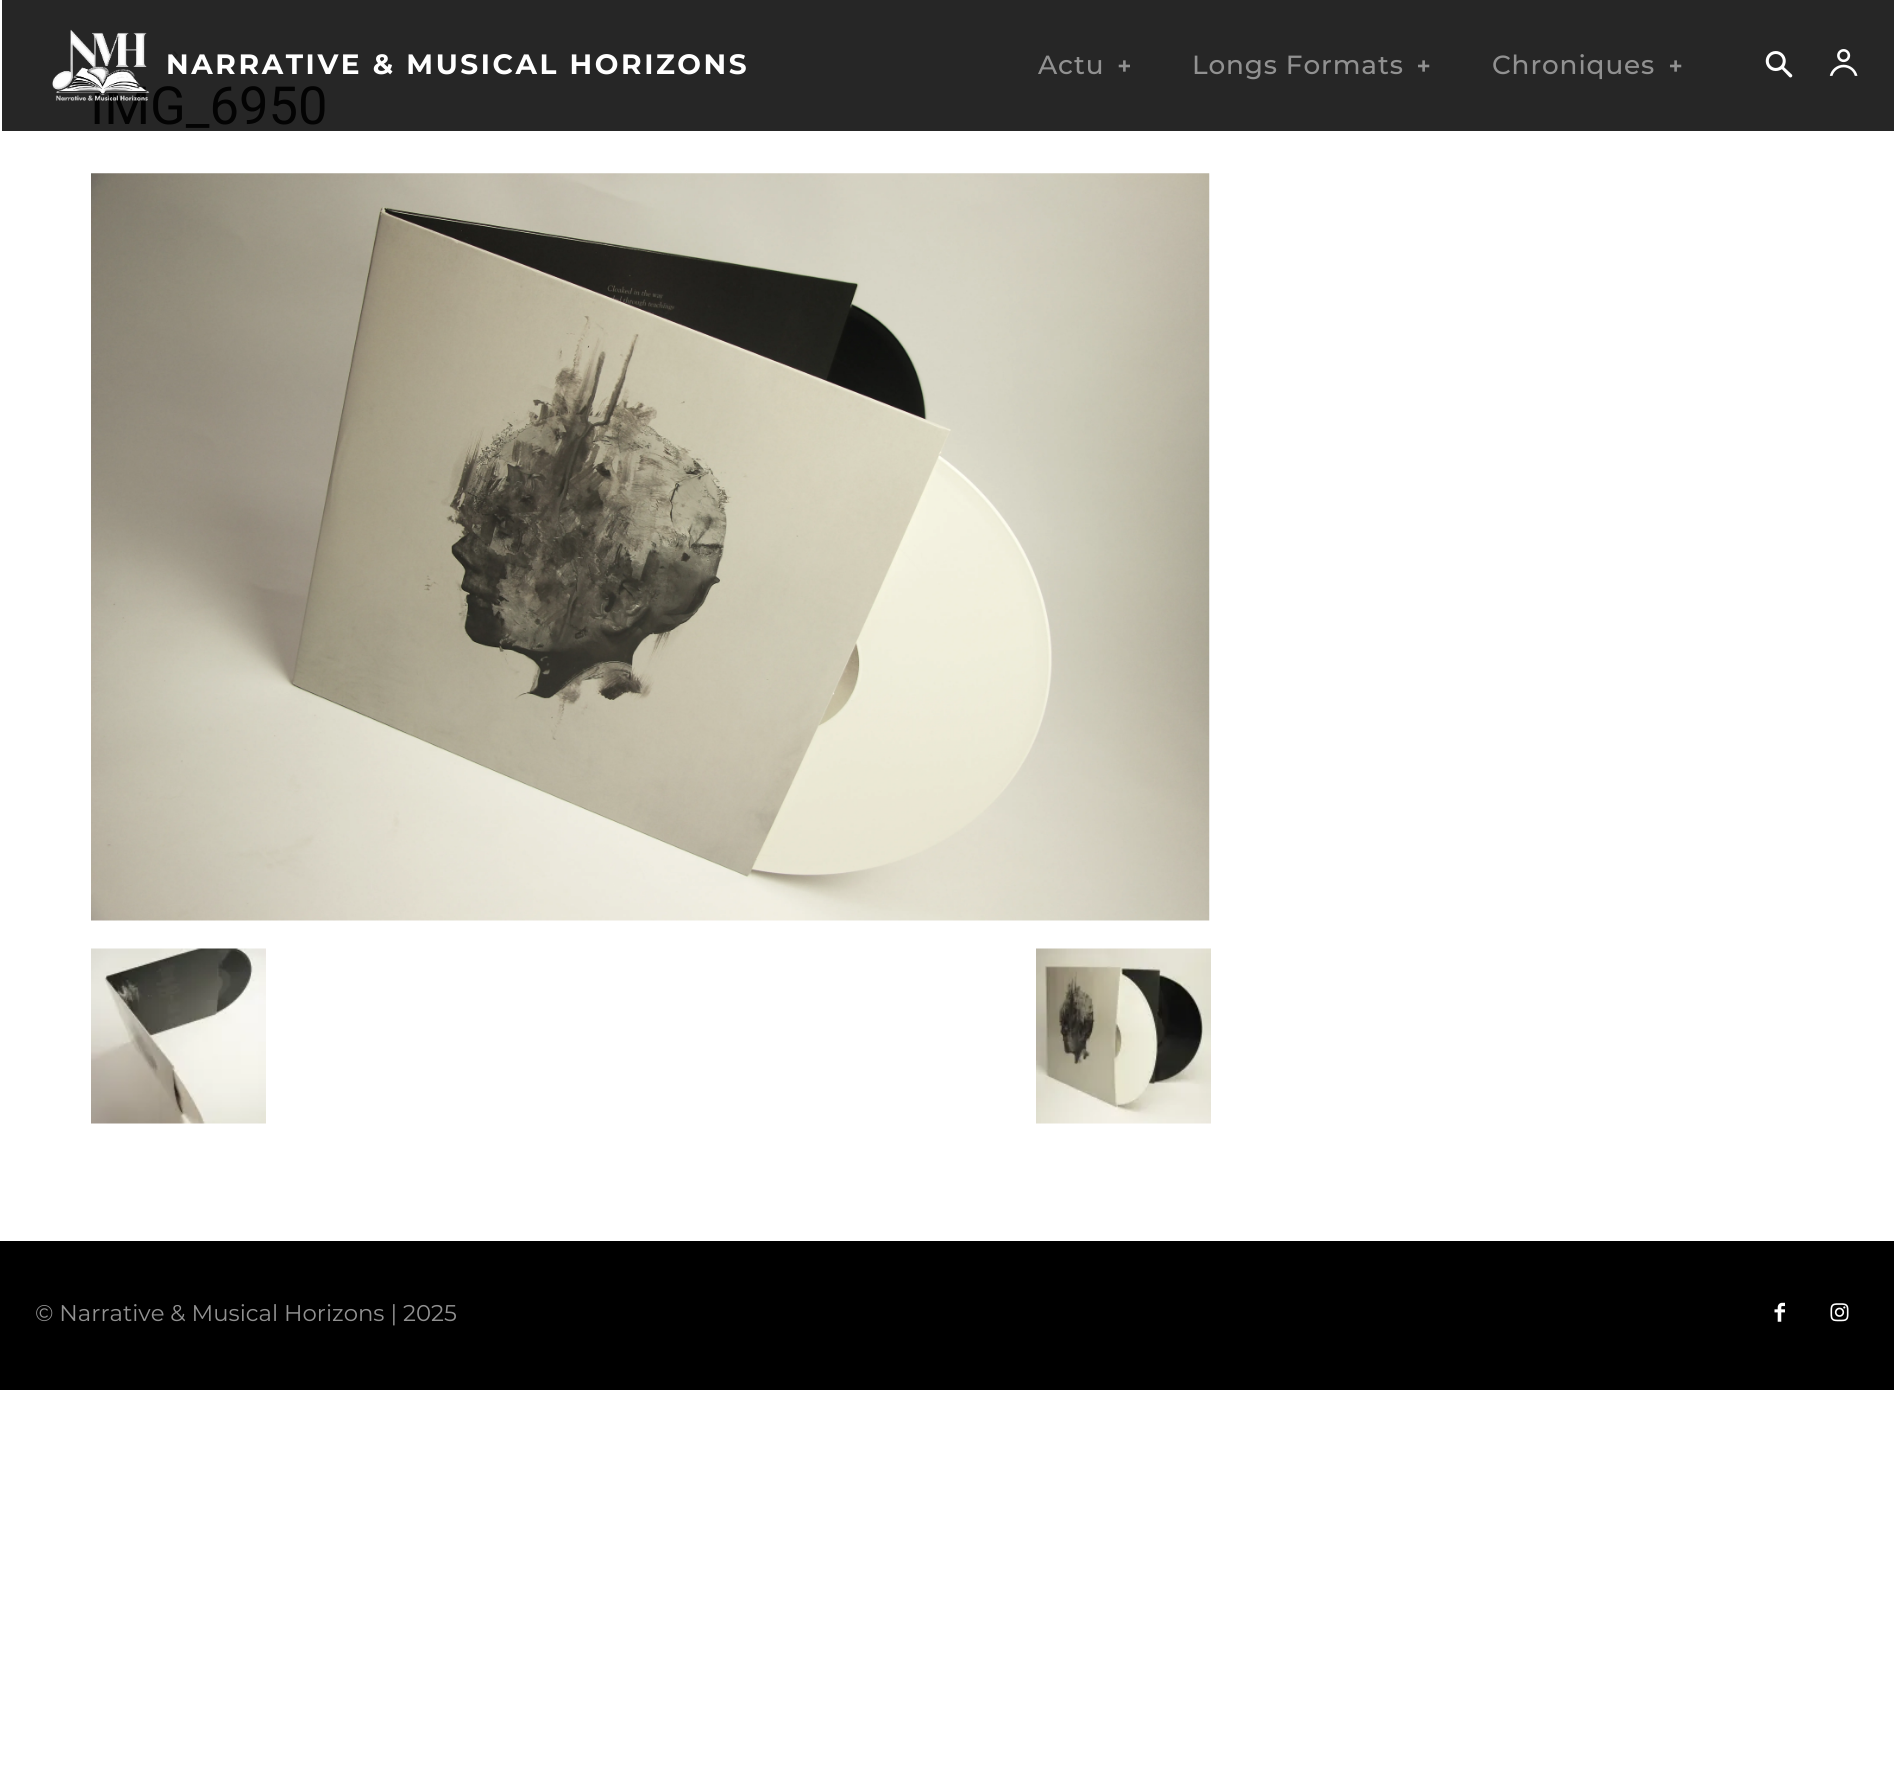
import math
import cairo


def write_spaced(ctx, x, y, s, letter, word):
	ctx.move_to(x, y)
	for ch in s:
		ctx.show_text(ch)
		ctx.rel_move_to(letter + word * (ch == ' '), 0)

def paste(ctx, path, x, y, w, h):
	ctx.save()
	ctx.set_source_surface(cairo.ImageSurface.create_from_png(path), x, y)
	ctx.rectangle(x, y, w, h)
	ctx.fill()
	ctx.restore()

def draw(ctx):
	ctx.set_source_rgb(1, 1, 1)
	ctx.paint()
	ctx.set_source_rgb(0.149, 0.149, 0.149)
	ctx.rectangle(2, 0, 1892, 131)
	ctx.fill()
	ctx.select_font_face('Roboto')
	ctx.set_font_size(52.5)
	ctx.set_source_rgb(0.012, 0.012, 0.012)
	ctx.move_to(90, 124)
	ctx.show_text('IMG_6950')
	paste(ctx, 'media/1.png', 52, 29, 98, 72)
	paste(ctx, 'media/6.png', 173, 51, 5, 9)
	paste(ctx, 'media/6.png', 334, 51, 5, 9)
	ctx.select_font_face('Montserrat', cairo.FONT_SLANT_NORMAL, cairo.FONT_WEIGHT_BOLD)
	ctx.set_font_size(28)
	ctx.set_source_rgb(1, 1, 1)
	write_spaced(ctx, 166, 74, 'NARRATIVE & MUSICAL HORIZONS', 2.6, 0)
	ctx.select_font_face('Montserrat Medium')
	ctx.set_font_size(26.25)
	ctx.set_source_rgb(0.569, 0.569, 0.569)
	write_spaced(ctx, 1038, 74, 'Actu', 0.9, 0)
	paste(ctx, 'media/2.png', 1118, 60, 12, 12)
	write_spaced(ctx, 1192, 74, 'Longs Formats', 0.9, 0)
	paste(ctx, 'media/3.png', 1418, 60, 12, 12)
	write_spaced(ctx, 1492, 74, 'Chroniques', 0.9, 0)
	paste(ctx, 'media/3.png', 1670, 60, 12, 12)
	paste(ctx, 'media/4.png', 1765, 51, 28, 27)
	paste(ctx, 'media/5.png', 1829, 49, 29, 27)
	paste(ctx, 'media/7.png', 91, 173, 1119, 748)
	paste(ctx, 'media/8.png', 91, 948, 175, 176)
	paste(ctx, 'media/9.png', 1036, 948, 175, 176)
	ctx.set_source_rgb(0, 0, 0)
	ctx.rectangle(0, 1241, 1894, 149)
	ctx.fill()
	ctx.select_font_face('Montserrat')
	ctx.set_font_size(22.75)
	ctx.set_source_rgb(0.569, 0.569, 0.569)
	ctx.move_to(35, 1321)
	ctx.show_text('© Narrative & Musical Horizons | 2025')
	paste(ctx, 'media/10.png', 1774, 1302, 11, 20)
	paste(ctx, 'media/11.png', 1830, 1303, 19, 19)


surface = cairo.ImageSurface(cairo.FORMAT_RGB24, 1894, 1767)
ctx = cairo.Context(surface)
options = cairo.FontOptions()
options.set_hint_metrics(cairo.HINT_METRICS_OFF)
options.set_hint_style(cairo.HINT_STYLE_NONE)
ctx.set_font_options(options)
ctx.set_miter_limit(4)
draw(ctx)
surface.write_to_png('image.png')
